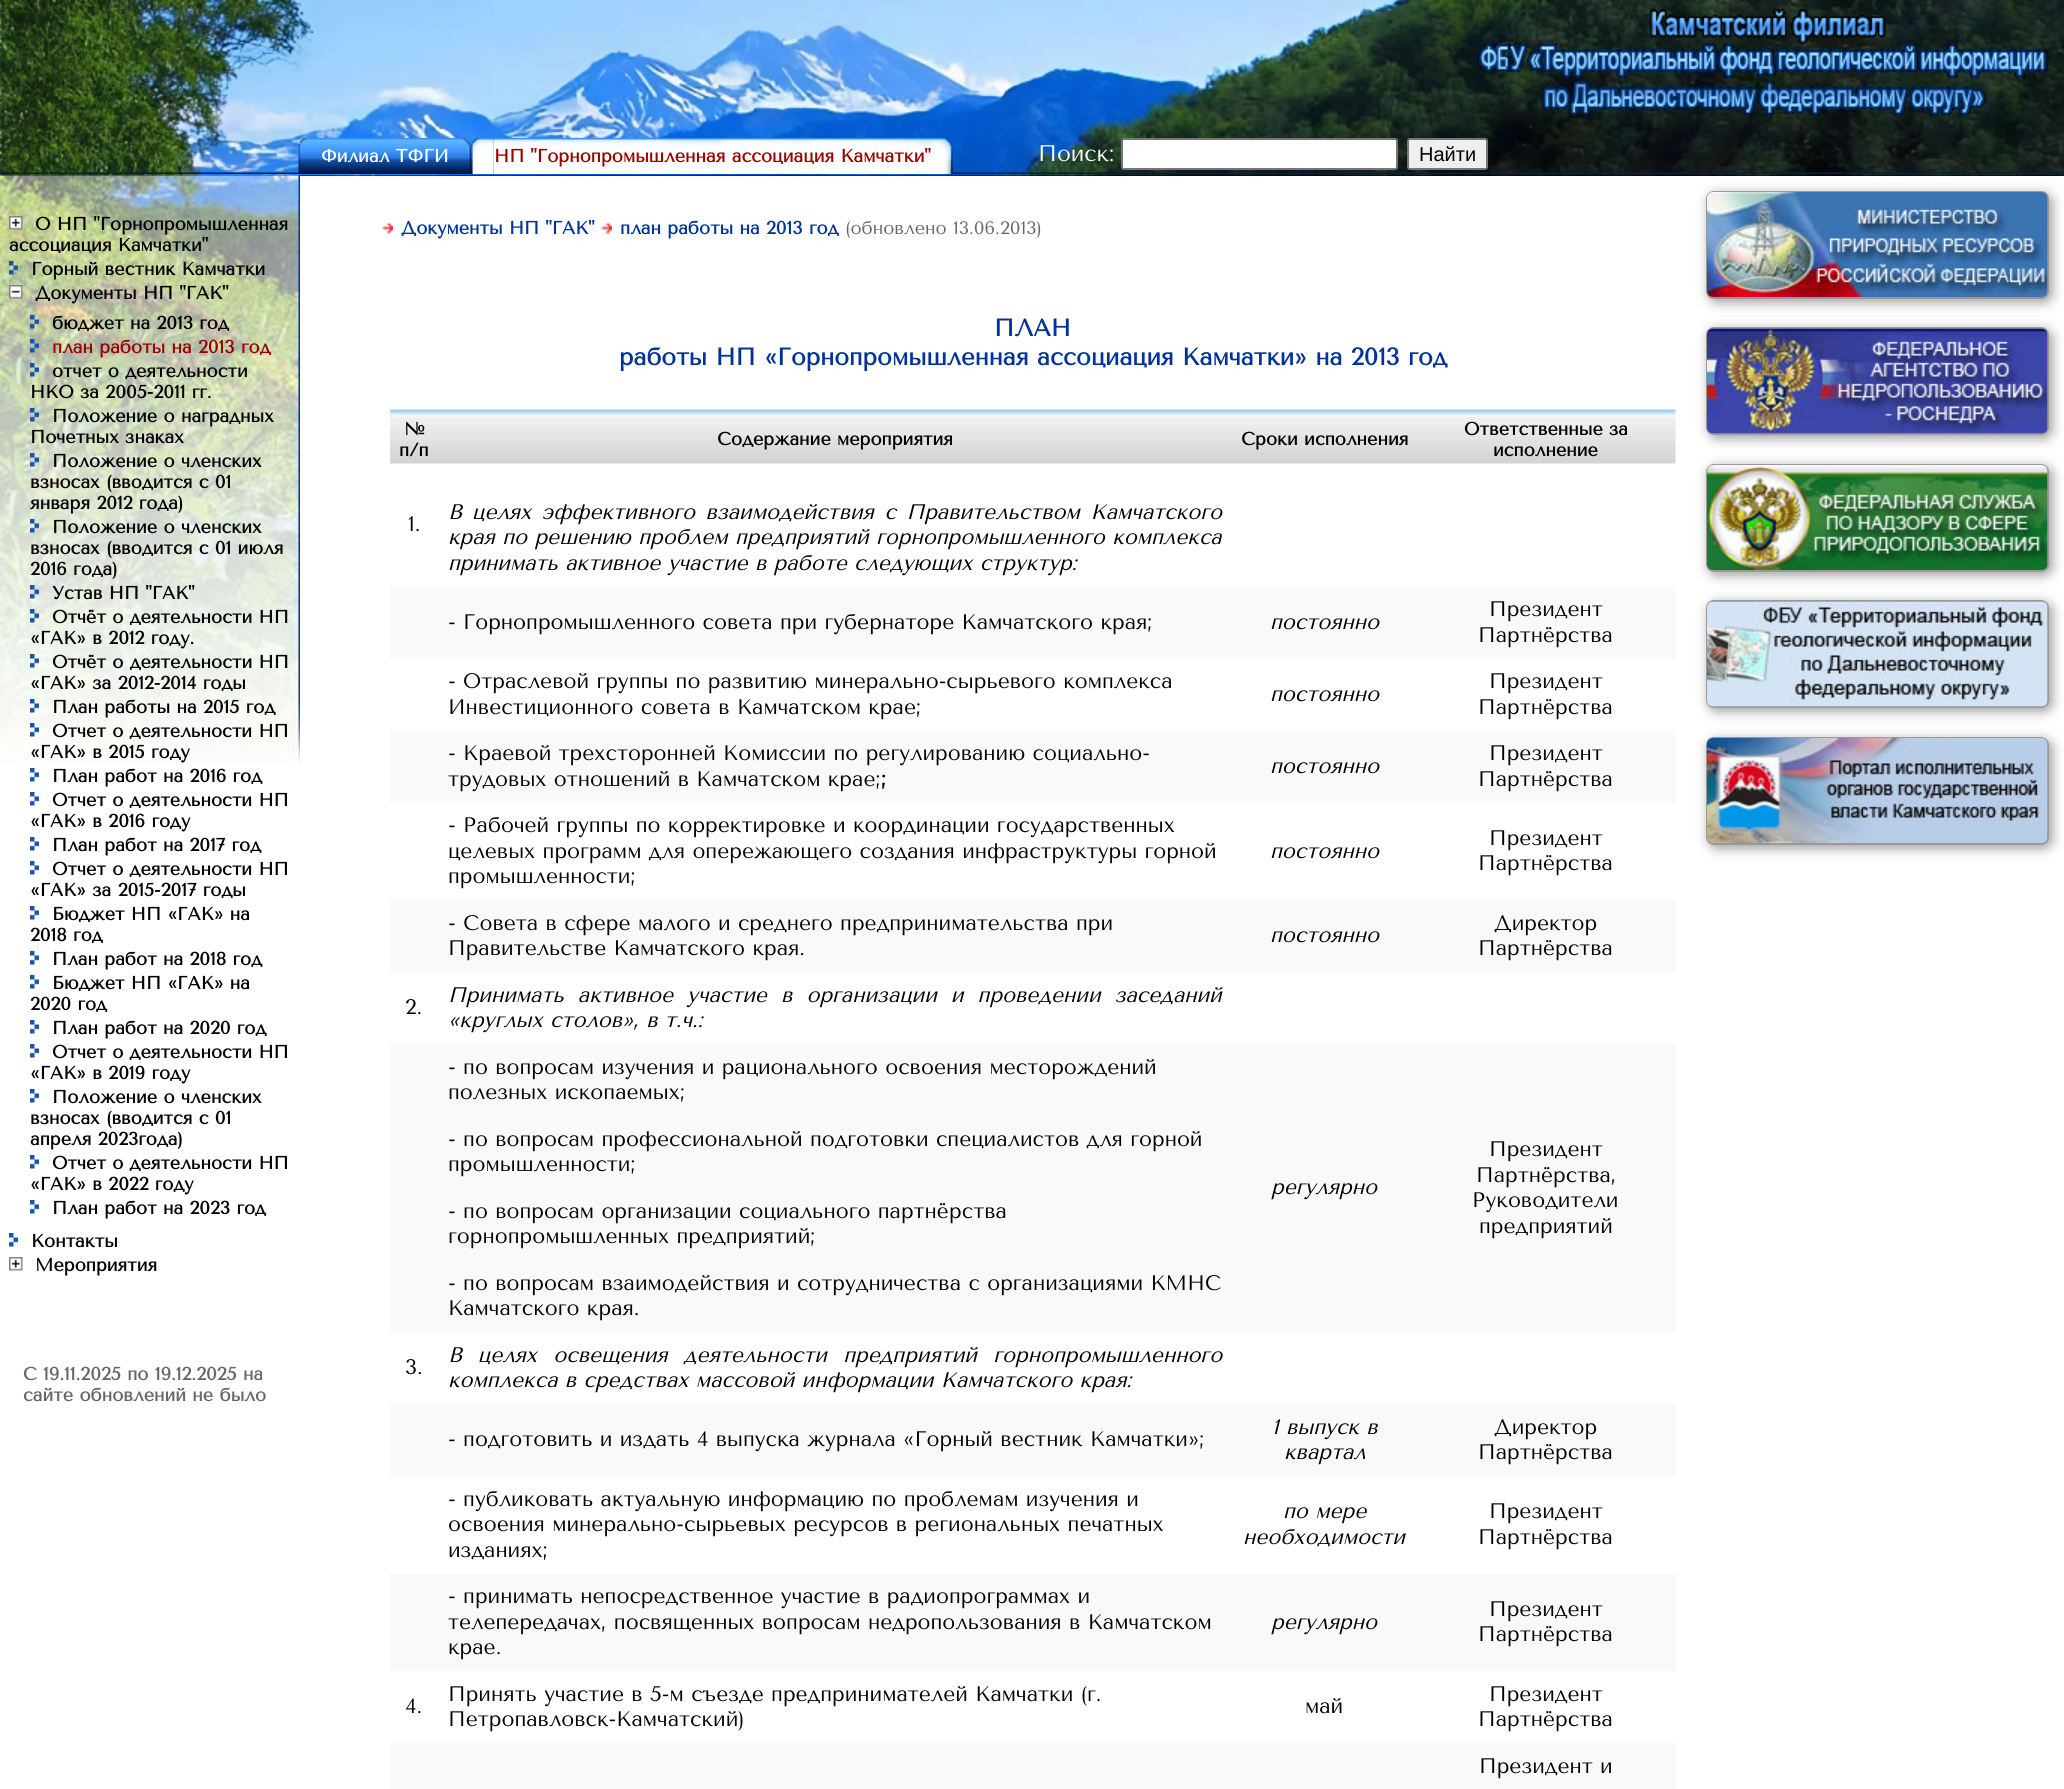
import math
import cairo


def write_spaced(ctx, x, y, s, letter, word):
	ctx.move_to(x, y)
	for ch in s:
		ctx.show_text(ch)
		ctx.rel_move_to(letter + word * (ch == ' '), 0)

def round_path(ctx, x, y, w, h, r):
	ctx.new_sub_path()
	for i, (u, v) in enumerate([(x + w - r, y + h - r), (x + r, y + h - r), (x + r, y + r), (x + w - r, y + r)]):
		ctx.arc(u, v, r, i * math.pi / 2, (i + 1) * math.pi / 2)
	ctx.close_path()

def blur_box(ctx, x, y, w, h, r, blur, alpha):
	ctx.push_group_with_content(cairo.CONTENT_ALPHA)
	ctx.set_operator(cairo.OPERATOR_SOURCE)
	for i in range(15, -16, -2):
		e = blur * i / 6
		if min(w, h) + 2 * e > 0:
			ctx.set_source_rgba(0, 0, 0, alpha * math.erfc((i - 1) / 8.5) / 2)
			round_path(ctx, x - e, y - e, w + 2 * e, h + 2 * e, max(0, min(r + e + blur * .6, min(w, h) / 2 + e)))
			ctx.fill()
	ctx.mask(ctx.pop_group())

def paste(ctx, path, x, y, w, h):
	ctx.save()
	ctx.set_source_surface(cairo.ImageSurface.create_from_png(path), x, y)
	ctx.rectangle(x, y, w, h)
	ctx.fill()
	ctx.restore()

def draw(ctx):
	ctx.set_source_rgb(1, 1, 1)
	ctx.paint()
	ctx.set_source_rgb(0, 0, 0)
	ctx.rectangle(0, 175, 2064, 1)
	ctx.fill()
	paste(ctx, 'media/1.png', 0, 0, 2064, 176)
	paste(ctx, 'media/2.png', 1477, 8, 571, 108)
	paste(ctx, 'media/3.png', 0, 172, 2064, 2)
	paste(ctx, 'media/4.png', 298, 138, 23, 36)
	paste(ctx, 'media/5.png', 321, 138, 150, 36)
	ctx.select_font_face('Tenor Sans', cairo.FONT_SLANT_NORMAL, cairo.FONT_WEIGHT_BOLD)
	ctx.set_font_size(18)
	ctx.set_source_rgb(1, 1, 1)
	ctx.move_to(321, 162)
	ctx.show_text('Филиал ТФГИ')
	paste(ctx, 'media/6.png', 471, 138, 23, 36)
	paste(ctx, 'media/7.png', 493, 138, 460, 36)
	ctx.set_source_rgb(0.6, 0, 0)
	ctx.move_to(494, 162)
	ctx.show_text('НП "Горнопромышленная ассоциация Камчатки"')
	ctx.select_font_face('Tenor Sans')
	ctx.set_font_size(22.5)
	ctx.set_source_rgb(1, 1, 1)
	ctx.move_to(1038, 161)
	ctx.show_text('Поиск:')
	round_path(ctx, 1122, 139, 275, 30, 2)
	ctx.fill_preserve()
	ctx.set_source_rgb(0.463, 0.463, 0.463)
	ctx.stroke()
	ctx.set_source_rgb(0.937, 0.937, 0.937)
	round_path(ctx, 1408, 139, 79, 30, 2)
	ctx.fill_preserve()
	ctx.set_source_rgb(0.463, 0.463, 0.463)
	ctx.stroke()
	ctx.select_font_face('Liberation Sans')
	ctx.set_font_size(20)
	ctx.set_source_rgb(0, 0, 0)
	ctx.move_to(1419, 161)
	ctx.show_text('Найти')
	paste(ctx, 'media/8.png', 0, 175, 300, 589)
	paste(ctx, 'media/9.png', 9, 216, 14, 14)
	ctx.select_font_face('Tenor Sans', cairo.FONT_SLANT_NORMAL, cairo.FONT_WEIGHT_BOLD)
	ctx.set_font_size(18)
	ctx.move_to(35, 230)
	ctx.show_text('О НП "Горнопромышленная')
	ctx.move_to(9, 251)
	ctx.show_text('ассоциация Камчатки"')
	paste(ctx, 'media/10.png', 9, 261, 9, 14)
	ctx.move_to(31, 275)
	ctx.show_text('Горный вестник Камчатки')
	paste(ctx, 'media/11.png', 9, 285, 14, 14)
	ctx.move_to(35, 299)
	ctx.show_text('Документы НП "ГАК"')
	paste(ctx, 'media/12.png', 30, 315, 9, 14)
	ctx.move_to(52, 329)
	ctx.show_text('бюджет на 2013 год')
	paste(ctx, 'media/13.png', 30, 339, 9, 14)
	ctx.set_source_rgb(0.6, 0, 0)
	ctx.move_to(52, 353)
	ctx.show_text('план работы на 2013 год')
	paste(ctx, 'media/14.png', 30, 363, 9, 14)
	ctx.set_source_rgb(0, 0, 0)
	ctx.move_to(52, 377)
	ctx.show_text('отчет о деятельности')
	ctx.move_to(30, 398)
	ctx.show_text('НКО за 2005-2011 гг.')
	paste(ctx, 'media/15.png', 30, 408, 9, 14)
	ctx.move_to(52, 422)
	ctx.show_text('Положение о наградных')
	ctx.move_to(30, 443)
	ctx.show_text('Почетных знаках')
	paste(ctx, 'media/16.png', 30, 453, 9, 14)
	for x, y, s in [
		(52, 467, 'Положение о членских'),
		(30, 488, 'взносах (вводится с 01'),
		(30, 509, 'января 2012 года)'),
	]:
		ctx.move_to(x, y)
		ctx.show_text(s)
	paste(ctx, 'media/17.png', 30, 519, 9, 14)
	for x, y, s in [
		(52, 533, 'Положение о членских'),
		(30, 554, 'взносах (вводится с 01 июля'),
		(30, 575, '2016 года)'),
	]:
		ctx.move_to(x, y)
		ctx.show_text(s)
	paste(ctx, 'media/18.png', 30, 585, 9, 14)
	ctx.move_to(52, 599)
	ctx.show_text('Устав НП "ГАК"')
	paste(ctx, 'media/19.png', 30, 609, 9, 14)
	ctx.move_to(52, 623)
	ctx.show_text('Отчёт о деятельности НП')
	ctx.move_to(30, 644)
	ctx.show_text('«ГАК» в 2012 году.')
	paste(ctx, 'media/20.png', 30, 654, 9, 14)
	ctx.move_to(52, 668)
	ctx.show_text('Отчёт о деятельности НП')
	ctx.move_to(30, 689)
	ctx.show_text('«ГАК» за 2012-2014 годы')
	paste(ctx, 'media/21.png', 30, 699, 9, 14)
	ctx.move_to(52, 713)
	ctx.show_text('План работы на 2015 год')
	paste(ctx, 'media/22.png', 30, 723, 9, 14)
	ctx.move_to(52, 737)
	ctx.show_text('Отчет о деятельности НП')
	ctx.move_to(30, 758)
	ctx.show_text('«ГАК» в 2015 году')
	paste(ctx, 'media/23.png', 30, 768, 9, 14)
	ctx.move_to(52, 782)
	ctx.show_text('План работ на 2016 год')
	paste(ctx, 'media/23.png', 30, 792, 9, 14)
	ctx.move_to(52, 806)
	ctx.show_text('Отчет о деятельности НП')
	ctx.move_to(30, 827)
	ctx.show_text('«ГАК» в 2016 году')
	paste(ctx, 'media/23.png', 30, 837, 9, 14)
	ctx.move_to(52, 851)
	ctx.show_text('План работ на 2017 год')
	paste(ctx, 'media/23.png', 30, 861, 9, 14)
	ctx.move_to(52, 875)
	ctx.show_text('Отчет о деятельности НП')
	ctx.move_to(30, 896)
	ctx.show_text('«ГАК» за 2015-2017 годы')
	paste(ctx, 'media/23.png', 30, 906, 9, 14)
	ctx.move_to(52, 920)
	ctx.show_text('Бюджет НП «ГАК» на')
	ctx.move_to(30, 941)
	ctx.show_text('2018 год')
	paste(ctx, 'media/23.png', 30, 951, 9, 14)
	ctx.move_to(52, 965)
	ctx.show_text('План работ на 2018 год')
	paste(ctx, 'media/23.png', 30, 975, 9, 14)
	ctx.move_to(52, 989)
	ctx.show_text('Бюджет НП «ГАК» на')
	ctx.move_to(30, 1010)
	ctx.show_text('2020 год')
	paste(ctx, 'media/23.png', 30, 1020, 9, 14)
	ctx.move_to(52, 1034)
	ctx.show_text('План работ на 2020 год')
	paste(ctx, 'media/23.png', 30, 1044, 9, 14)
	ctx.move_to(52, 1058)
	ctx.show_text('Отчет о деятельности НП')
	ctx.move_to(30, 1079)
	ctx.show_text('«ГАК» в 2019 году')
	paste(ctx, 'media/23.png', 30, 1089, 9, 14)
	for x, y, s in [
		(52, 1103, 'Положение о членских'),
		(30, 1124, 'взносах (вводится с 01'),
		(30, 1145, 'апреля 2023года)'),
	]:
		ctx.move_to(x, y)
		ctx.show_text(s)
	paste(ctx, 'media/23.png', 30, 1155, 9, 14)
	ctx.move_to(52, 1169)
	ctx.show_text('Отчет о деятельности НП')
	ctx.move_to(30, 1190)
	ctx.show_text('«ГАК» в 2022 году')
	paste(ctx, 'media/23.png', 30, 1200, 9, 14)
	ctx.move_to(52, 1214)
	ctx.show_text('План работ на 2023 год')
	paste(ctx, 'media/23.png', 9, 1233, 9, 14)
	ctx.move_to(31, 1247)
	ctx.show_text('Контакты')
	paste(ctx, 'media/24.png', 9, 1257, 14, 14)
	ctx.move_to(35, 1271)
	ctx.show_text('Мероприятия')
	ctx.set_source_rgb(0.4, 0.4, 0.4)
	ctx.move_to(23, 1380)
	ctx.show_text('C 19.11.2025 по 19.12.2025 на')
	ctx.move_to(23, 1401)
	ctx.show_text('сайте обновлений не было')
	paste(ctx, 'media/25.png', 382, 223, 11, 11)
	ctx.set_source_rgb(0, 0.2, 0.6)
	ctx.move_to(401, 234)
	ctx.show_text('Документы НП "ГАК"')
	paste(ctx, 'media/25.png', 601, 223, 11, 11)
	ctx.move_to(620, 234)
	ctx.show_text('план работы на 2013 год')
	ctx.select_font_face('Tenor Sans')
	ctx.set_source_rgb(0.4, 0.4, 0.4)
	ctx.move_to(845, 234)
	ctx.show_text('(обновлено 13.06.2013)')
	ctx.select_font_face('Tenor Sans', cairo.FONT_SLANT_NORMAL, cairo.FONT_WEIGHT_BOLD)
	ctx.set_font_size(24)
	ctx.set_source_rgb(0, 0.2, 0.6)
	ctx.move_to(994, 336)
	ctx.show_text('ПЛАН')
	ctx.move_to(619, 365)
	ctx.show_text('работы НП «Горнопромышленная ассоциация Камчатки» на 2013 год')
	paste(ctx, 'media/26.png', 390, 409, 48, 55)
	ctx.set_font_size(18)
	ctx.set_source_rgb(0, 0, 0)
	ctx.move_to(404, 435)
	ctx.show_text('№')
	ctx.move_to(399, 456)
	ctx.show_text('п/п')
	paste(ctx, 'media/27.png', 438, 409, 795, 55)
	ctx.move_to(717, 445)
	ctx.show_text('Содержание мероприятия')
	paste(ctx, 'media/28.png', 1233, 409, 183, 55)
	ctx.move_to(1241, 445)
	ctx.show_text('Сроки исполнения')
	paste(ctx, 'media/29.png', 1416, 409, 260, 55)
	ctx.move_to(1464, 435)
	ctx.show_text('Ответственные за')
	ctx.move_to(1493, 456)
	ctx.show_text('исполнение')
	ctx.select_font_face('Tenor Sans')
	ctx.set_font_size(21)
	ctx.move_to(408, 531)
	ctx.show_text('1.')
	ctx.select_font_face('Tenor Sans', cairo.FONT_SLANT_ITALIC)
	write_spaced(ctx, 448, 519, 'В целях эффективного взаимодействия с Правительством Камчатского', 0, 3.25)
	ctx.move_to(448, 544)
	ctx.show_text('края по решению проблем предприятий горнопромышленного комплекса')
	ctx.move_to(448, 570)
	ctx.show_text('принимать активное участие в работе следующих структур:')
	ctx.set_source_rgb(0.976, 0.976, 0.976)
	ctx.rectangle(390, 587, 1286, 72)
	ctx.fill()
	ctx.select_font_face('Tenor Sans')
	ctx.set_source_rgb(0, 0, 0)
	ctx.move_to(448, 629)
	ctx.show_text('- Горнопромышленного совета при губернаторе Камчатского края;')
	ctx.select_font_face('Tenor Sans', cairo.FONT_SLANT_ITALIC)
	ctx.move_to(1270, 629)
	ctx.show_text('постоянно')
	ctx.select_font_face('Tenor Sans')
	for x, y, s in [
		(1489, 616, 'Президент'),
		(1478, 642, 'Партнёрства'),
		(448, 688, '- Отраслевой группы по развитию минерально-сырьевого комплекса'),
		(448, 714, 'Инвестиционного совета в Камчатском крае;'),
	]:
		ctx.move_to(x, y)
		ctx.show_text(s)
	ctx.select_font_face('Tenor Sans', cairo.FONT_SLANT_ITALIC)
	ctx.move_to(1270, 701)
	ctx.show_text('постоянно')
	ctx.select_font_face('Tenor Sans')
	ctx.move_to(1489, 688)
	ctx.show_text('Президент')
	ctx.move_to(1478, 714)
	ctx.show_text('Партнёрства')
	ctx.set_source_rgb(0.976, 0.976, 0.976)
	ctx.rectangle(390, 731, 1286, 72)
	ctx.fill()
	ctx.set_source_rgb(0, 0, 0)
	ctx.move_to(448, 760)
	ctx.show_text('- Краевой трехсторонней Комиссии по регулированию социально-')
	ctx.move_to(448, 786)
	ctx.show_text('трудовых отношений в Камчатском крае;')
	ctx.select_font_face('Tenor Sans', cairo.FONT_SLANT_NORMAL, cairo.FONT_WEIGHT_BOLD)
	ctx.move_to(881, 786)
	ctx.show_text(';')
	ctx.select_font_face('Tenor Sans', cairo.FONT_SLANT_ITALIC)
	ctx.move_to(1270, 773)
	ctx.show_text('постоянно')
	ctx.select_font_face('Tenor Sans')
	for x, y, s in [
		(1489, 760, 'Президент'),
		(1478, 786, 'Партнёрства'),
		(448, 832, '- Рабочей группы по корректировке и координации государственных'),
		(448, 858, 'целевых программ для опережающего создания инфраструктуры горной'),
		(448, 883, 'промышленности;'),
	]:
		ctx.move_to(x, y)
		ctx.show_text(s)
	ctx.select_font_face('Tenor Sans', cairo.FONT_SLANT_ITALIC)
	ctx.move_to(1270, 858)
	ctx.show_text('постоянно')
	ctx.select_font_face('Tenor Sans')
	ctx.move_to(1489, 845)
	ctx.show_text('Президент')
	ctx.move_to(1478, 870)
	ctx.show_text('Партнёрства')
	ctx.set_source_rgb(0.976, 0.976, 0.976)
	ctx.rectangle(390, 900, 1286, 72)
	ctx.fill()
	ctx.set_source_rgb(0, 0, 0)
	ctx.move_to(448, 930)
	ctx.show_text('- Совета в сфере малого и среднего предпринимательства при')
	ctx.move_to(448, 955)
	ctx.show_text('Правительстве Камчатского края.')
	ctx.select_font_face('Tenor Sans', cairo.FONT_SLANT_ITALIC)
	ctx.move_to(1270, 942)
	ctx.show_text('постоянно')
	ctx.select_font_face('Tenor Sans')
	for x, y, s in [
		(1494, 930, 'Директор'),
		(1478, 955, 'Партнёрства'),
		(405, 1014, '2.'),
	]:
		ctx.move_to(x, y)
		ctx.show_text(s)
	ctx.select_font_face('Tenor Sans', cairo.FONT_SLANT_ITALIC)
	write_spaced(ctx, 448, 1002, 'Принимать активное участие в организации и проведении заседаний', 0, 6.75)
	ctx.move_to(448, 1027)
	ctx.show_text('«круглых столов», в т.ч.:')
	ctx.set_source_rgb(0.976, 0.976, 0.976)
	ctx.rectangle(390, 1044, 1286, 288)
	ctx.fill()
	ctx.select_font_face('Tenor Sans')
	ctx.set_source_rgb(0, 0, 0)
	for x, y, s in [
		(448, 1074, '- по вопросам изучения и рационального освоения месторождений'),
		(448, 1099, 'полезных ископаемых;'),
		(448, 1146, '- по вопросам профессиональной подготовки специалистов для горной'),
		(448, 1171, 'промышленности;'),
		(448, 1218, '- по вопросам организации социального партнёрства'),
		(448, 1243, 'горнопромышленных предприятий;'),
		(448, 1290, '- по вопросам взаимодействия и сотрудничества с организациями КМНС'),
		(448, 1315, 'Камчатского края.'),
	]:
		ctx.move_to(x, y)
		ctx.show_text(s)
	ctx.select_font_face('Tenor Sans', cairo.FONT_SLANT_ITALIC)
	ctx.move_to(1271, 1194)
	ctx.show_text('регулярно')
	ctx.select_font_face('Tenor Sans')
	for x, y, s in [
		(1489, 1156, 'Президент'),
		(1476, 1182, 'Партнёрства,'),
		(1472, 1207, 'Руководители'),
		(1479, 1233, 'предприятий'),
		(405, 1374, '3.'),
	]:
		ctx.move_to(x, y)
		ctx.show_text(s)
	ctx.select_font_face('Tenor Sans', cairo.FONT_SLANT_ITALIC)
	write_spaced(ctx, 448, 1362, 'В целях освещения деятельности предприятий горнопромышленного', 0, 9)
	ctx.move_to(448, 1387)
	ctx.show_text('комплекса в средствах массовой информации Камчатского края:')
	ctx.set_source_rgb(0.976, 0.976, 0.976)
	ctx.rectangle(390, 1404, 1286, 72)
	ctx.fill()
	ctx.select_font_face('Tenor Sans')
	ctx.set_source_rgb(0, 0, 0)
	ctx.move_to(448, 1446)
	ctx.show_text('- подготовить и издать 4 выпуска журнала «Горный вестник Камчатки»;')
	ctx.select_font_face('Tenor Sans', cairo.FONT_SLANT_ITALIC)
	ctx.move_to(1272, 1434)
	ctx.show_text('1 выпуск в')
	ctx.move_to(1284, 1459)
	ctx.show_text('квартал')
	ctx.select_font_face('Tenor Sans')
	for x, y, s in [
		(1494, 1434, 'Директор'),
		(1478, 1459, 'Партнёрства'),
		(448, 1506, '- публиковать актуальную информацию по проблемам изучения и'),
		(448, 1531, 'освоения минерально-сырьевых ресурсов в региональных печатных'),
		(448, 1557, 'изданиях;'),
	]:
		ctx.move_to(x, y)
		ctx.show_text(s)
	ctx.select_font_face('Tenor Sans', cairo.FONT_SLANT_ITALIC)
	ctx.move_to(1283, 1518)
	ctx.show_text('по мере')
	ctx.move_to(1243, 1544)
	ctx.show_text('необходимости')
	ctx.select_font_face('Tenor Sans')
	ctx.move_to(1489, 1518)
	ctx.show_text('Президент')
	ctx.move_to(1478, 1544)
	ctx.show_text('Партнёрства')
	ctx.set_source_rgb(0.976, 0.976, 0.976)
	ctx.rectangle(390, 1574, 1286, 97)
	ctx.fill()
	ctx.set_source_rgb(0, 0, 0)
	for x, y, s in [
		(448, 1603, '- принимать непосредственное участие в радиопрограммах и'),
		(448, 1629, 'телепередачах, посвященных вопросам недропользования в Камчатском'),
		(448, 1654, 'крае.'),
	]:
		ctx.move_to(x, y)
		ctx.show_text(s)
	ctx.select_font_face('Tenor Sans', cairo.FONT_SLANT_ITALIC)
	ctx.move_to(1271, 1629)
	ctx.show_text('регулярно')
	ctx.select_font_face('Tenor Sans')
	for x, y, s in [
		(1489, 1616, 'Президент'),
		(1478, 1641, 'Партнёрства'),
		(405, 1713, '4.'),
		(448, 1701, 'Принять участие в 5-м съезде предпринимателей Камчатки (г.'),
		(448, 1726, 'Петропавловск-Камчатский)'),
		(1305, 1713, 'май'),
		(1489, 1701, 'Президент'),
		(1478, 1726, 'Партнёрства'),
	]:
		ctx.move_to(x, y)
		ctx.show_text(s)
	ctx.set_source_rgb(0.976, 0.976, 0.976)
	ctx.rectangle(390, 1743, 1286, 46)
	ctx.fill()
	ctx.set_source_rgb(0, 0, 0)
	ctx.move_to(1479, 1773)
	ctx.show_text('Президент и')
	ctx.set_source_rgb(0.6, 0.6, 0.6)
	blur_box(ctx, 1709, 194, 343, 108, 8, 6, 1)
	round_path(ctx, 1707, 192, 341, 106, 7)
	ctx.set_source_rgb(0.6, 0.6, 0.6)
	ctx.stroke()
	paste(ctx, 'media/30.png', 1707, 192, 341, 105)
	ctx.set_source_rgb(0.6, 0.6, 0.6)
	blur_box(ctx, 1709, 330, 343, 108, 8, 6, 1)
	round_path(ctx, 1707, 328, 341, 106, 7)
	ctx.set_source_rgb(0.6, 0.6, 0.6)
	ctx.stroke()
	paste(ctx, 'media/31.png', 1707, 328, 341, 106)
	ctx.set_source_rgb(0.6, 0.6, 0.6)
	blur_box(ctx, 1709, 467, 343, 108, 8, 6, 1)
	round_path(ctx, 1707, 465, 341, 106, 7)
	ctx.set_source_rgb(0.6, 0.6, 0.6)
	ctx.stroke()
	paste(ctx, 'media/32.png', 1707, 465, 341, 105)
	ctx.set_source_rgb(0.6, 0.6, 0.6)
	blur_box(ctx, 1709, 603, 343, 108, 8, 6, 1)
	round_path(ctx, 1707, 601, 341, 106, 7)
	ctx.set_source_rgb(0.6, 0.6, 0.6)
	ctx.stroke()
	paste(ctx, 'media/33.png', 1707, 601, 341, 106)
	ctx.set_source_rgb(0.6, 0.6, 0.6)
	blur_box(ctx, 1709, 740, 343, 108, 8, 6, 1)
	round_path(ctx, 1707, 738, 341, 106, 7)
	ctx.set_source_rgb(0.6, 0.6, 0.6)
	ctx.stroke()
	paste(ctx, 'media/34.png', 1707, 738, 341, 105)


surface = cairo.ImageSurface(cairo.FORMAT_RGB24, 2064, 1789)
ctx = cairo.Context(surface)
options = cairo.FontOptions()
options.set_hint_metrics(cairo.HINT_METRICS_OFF)
options.set_hint_style(cairo.HINT_STYLE_NONE)
ctx.set_font_options(options)
ctx.set_miter_limit(4)
draw(ctx)
surface.write_to_png('image.png')
